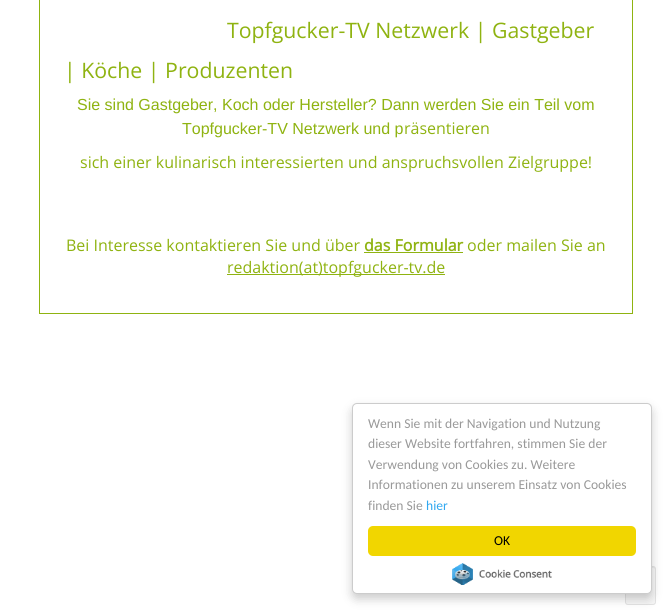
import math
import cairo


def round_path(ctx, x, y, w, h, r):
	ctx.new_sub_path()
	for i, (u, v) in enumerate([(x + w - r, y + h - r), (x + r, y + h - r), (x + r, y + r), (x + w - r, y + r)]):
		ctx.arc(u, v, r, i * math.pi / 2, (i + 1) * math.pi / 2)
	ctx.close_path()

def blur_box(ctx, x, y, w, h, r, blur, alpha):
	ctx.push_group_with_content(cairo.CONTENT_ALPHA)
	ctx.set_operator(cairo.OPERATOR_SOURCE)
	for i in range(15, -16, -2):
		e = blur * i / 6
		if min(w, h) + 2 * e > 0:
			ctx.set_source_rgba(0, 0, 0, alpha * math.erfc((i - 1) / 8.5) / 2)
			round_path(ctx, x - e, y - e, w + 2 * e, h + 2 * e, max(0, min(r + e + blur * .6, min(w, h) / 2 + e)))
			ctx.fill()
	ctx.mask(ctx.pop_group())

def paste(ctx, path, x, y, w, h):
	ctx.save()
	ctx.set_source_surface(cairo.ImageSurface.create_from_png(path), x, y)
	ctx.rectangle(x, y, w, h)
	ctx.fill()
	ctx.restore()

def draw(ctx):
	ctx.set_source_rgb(1, 1, 1)
	ctx.paint()
	ctx.rectangle(39.5, -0.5, 593, 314)
	ctx.set_source_rgb(0.561, 0.702, 0.067)
	ctx.set_line_width(1)
	ctx.stroke()
	ctx.select_font_face('Open Sans')
	ctx.set_font_size(21.3)
	ctx.move_to(227, 38)
	ctx.show_text('Topfgucker-TV Netzwerk | Gastgeber')
	ctx.move_to(64, 78)
	ctx.show_text('| Köche | Produzenten')
	ctx.select_font_face('Liberation Sans')
	ctx.set_font_size(16)
	ctx.move_to(77, 110)
	ctx.show_text('Sie sind Gastgeber, Koch oder Hersteller? Dann werden Sie ein Teil vom')
	ctx.move_to(182, 134)
	ctx.show_text('Topfgucker-TV Netzwerk und p')
	ctx.select_font_face('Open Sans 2')
	for x, y, s in [
		(404, 134, 'räsentieren'),
		(80, 168, 'sich einer kulinarisch interessierten und anspruchsvollen Zielgruppe!'),
		(66, 251, 'Bei Interesse kontaktieren Sie und über'),
	]:
		ctx.move_to(x, y)
		ctx.show_text(s)
	ctx.select_font_face('Open Sans', cairo.FONT_SLANT_NORMAL, cairo.FONT_WEIGHT_BOLD)
	ctx.move_to(364, 251)
	ctx.show_text('das Formular')
	ctx.rectangle(364, 252, 99, 1)
	ctx.fill()
	ctx.select_font_face('Open Sans 2')
	ctx.move_to(467, 251)
	ctx.show_text('oder mailen Sie an')
	ctx.rectangle(227, 274, 218, 1)
	ctx.fill()
	ctx.move_to(227, 273)
	ctx.show_text('redaktion(at)topfgucker-tv.de')
	ctx.set_source_rgb(0.961, 0.961, 0.961)
	round_path(ctx, 625, 566, 31, 39, 3)
	ctx.fill()
	ctx.set_source_rgb(0.914, 0.914, 0.914)
	ctx.new_path()
	ctx.move_to(628, 568)
	ctx.line_to(653, 568)
	ctx.curve_to(654, 568, 655, 569, 655, 570)
	ctx.curve_to(655, 566, 652.5, 567, 649, 567)
	ctx.line_to(632, 567)
	ctx.curve_to(628.5, 567, 626, 566, 626, 570)
	ctx.curve_to(626, 569, 627, 568, 628, 568)
	ctx.close_path()
	ctx.fill()
	round_path(ctx, 625.5, 566.5, 30, 38, 2.5)
	ctx.set_source_rgb(0.89, 0.89, 0.89)
	ctx.stroke()
	ctx.set_source_rgb(0, 0, 0)
	blur_box(ctx, 352, 408, 300, 191, 5, 5, 0.2)
	ctx.set_source_rgb(1, 1, 1)
	round_path(ctx, 352.5, 403.5, 299, 190, 4.5)
	ctx.fill_preserve()
	ctx.set_source_rgb(0.8, 0.8, 0.8)
	ctx.stroke()
	ctx.select_font_face('Carlito')
	ctx.set_font_size(13.6)
	ctx.set_source_rgb(0.6, 0.6, 0.6)
	for x, y, s in [
		(368, 428, 'Wenn Sie mit der Navigation und Nutzung'),
		(368, 448, 'dieser Website fortfahren, stimmen Sie der'),
		(368, 469, 'Verwendung von Cookies zu. Weitere'),
		(368, 489, 'Informationen zu unserem Einsatz von Cookies'),
		(368, 510, 'finden Sie'),
	]:
		ctx.move_to(x, y)
		ctx.show_text(s)
	ctx.set_source_rgb(0.192, 0.659, 0.941)
	ctx.move_to(426, 510)
	ctx.show_text('hier')
	ctx.set_source_rgb(0.945, 0.839, 0)
	round_path(ctx, 368, 526, 268, 30, 5)
	ctx.fill()
	ctx.set_source_rgb(0, 0, 0)
	ctx.move_to(494, 545)
	ctx.show_text('OK')
	paste(ctx, 'media/1.png', 452, 563, 100, 22)


surface = cairo.ImageSurface(cairo.FORMAT_RGB24, 672, 614)
ctx = cairo.Context(surface)
options = cairo.FontOptions()
options.set_hint_metrics(cairo.HINT_METRICS_OFF)
options.set_hint_style(cairo.HINT_STYLE_NONE)
ctx.set_font_options(options)
ctx.set_miter_limit(4)
draw(ctx)
surface.write_to_png('image.png')
